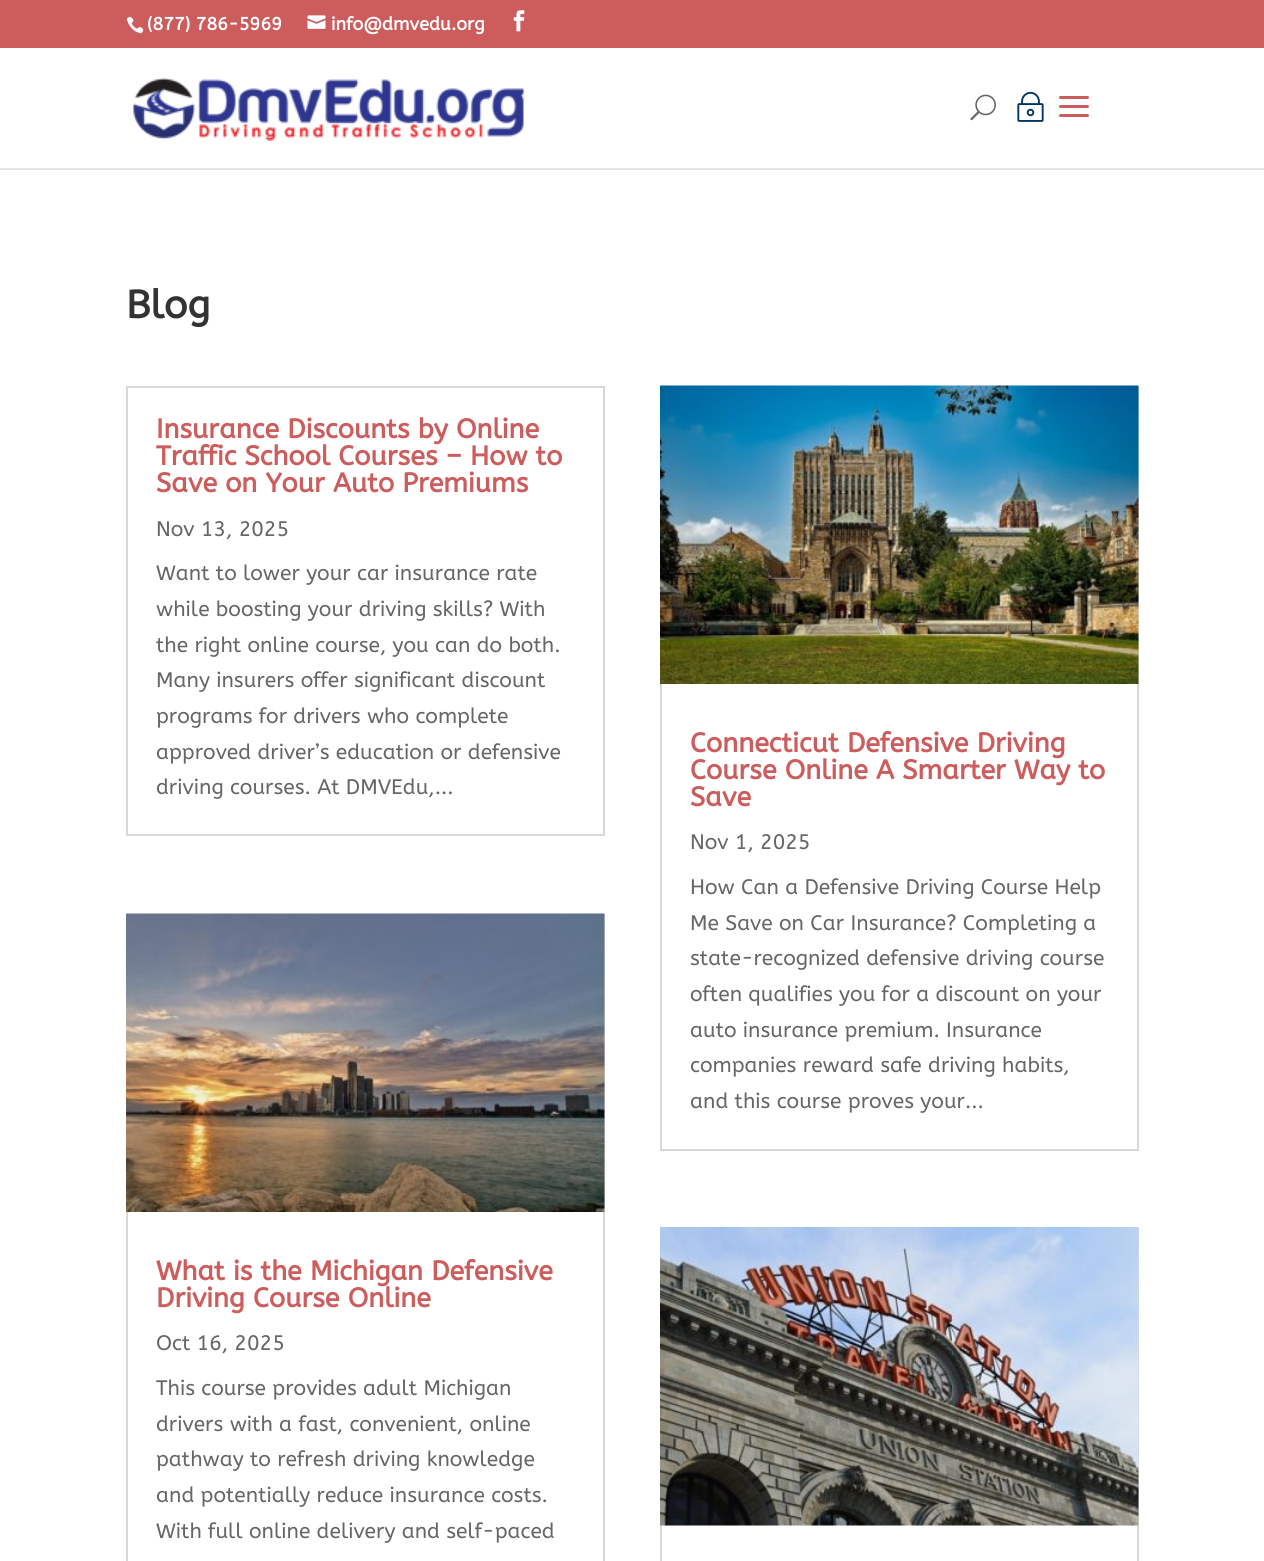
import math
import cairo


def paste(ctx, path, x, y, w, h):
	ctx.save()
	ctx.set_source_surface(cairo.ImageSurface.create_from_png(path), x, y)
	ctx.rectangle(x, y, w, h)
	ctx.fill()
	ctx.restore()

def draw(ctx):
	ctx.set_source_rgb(1, 1, 1)
	ctx.paint()
	ctx.set_source_rgb(0.804, 0.361, 0.361)
	ctx.rectangle(0, 0, 1264, 48)
	ctx.fill()
	paste(ctx, 'media/1.png', 126, 16, 18, 18)
	ctx.select_font_face('ABeeZee', cairo.FONT_SLANT_NORMAL, cairo.FONT_WEIGHT_BOLD)
	ctx.set_font_size(18)
	ctx.set_source_rgb(1, 1, 1)
	ctx.move_to(147, 30)
	ctx.show_text('(877) 786-5969')
	paste(ctx, 'media/2.png', 307, 15, 19, 14)
	ctx.move_to(331, 30)
	ctx.show_text('info@dmvedu.org')
	paste(ctx, 'media/3.png', 513, 10, 12, 22)
	ctx.set_source_rgb(0.902, 0.902, 0.902)
	ctx.new_path()
	ctx.move_to(0, 168)
	ctx.line_to(0, 170)
	ctx.line_to(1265, 170)
	ctx.line_to(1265, 50)
	ctx.line_to(1264, 50)
	ctx.line_to(1264, 168)
	ctx.close_path()
	ctx.fill()
	paste(ctx, 'media/4.png', 133, 77, 391, 64)
	paste(ctx, 'media/5.png', 970, 94, 26, 27)
	paste(ctx, 'media/6.png', 1017, 91, 27, 31)
	paste(ctx, 'media/7.png', 1059, 96, 30, 21)
	ctx.set_font_size(39)
	ctx.set_source_rgb(0.2, 0.2, 0.2)
	ctx.move_to(126, 318)
	ctx.show_text('Blog')
	ctx.rectangle(127, 387, 477, 448)
	ctx.set_source_rgb(0.847, 0.847, 0.847)
	ctx.stroke()
	ctx.set_font_size(27)
	ctx.set_source_rgb(0.804, 0.361, 0.361)
	for x, y, s in [
		(156, 438, 'Insurance Discounts by Online'),
		(156, 465, 'Traffic School Courses – How to'),
		(156, 492, 'Save on Your Auto Premiums'),
	]:
		ctx.move_to(x, y)
		ctx.show_text(s)
	ctx.select_font_face('ABeeZee')
	ctx.set_font_size(21)
	ctx.set_source_rgb(0.4, 0.4, 0.4)
	for x, y, s in [
		(156, 536, 'Nov 13, 2025'),
		(156, 580, 'Want to lower your car insurance rate'),
		(156, 616, 'while boosting your driving skills? With'),
		(156, 652, 'the right online course, you can do both.'),
		(156, 687, 'Many insurers offer significant discount'),
		(156, 723, 'programs for drivers who complete'),
		(156, 759, 'approved driver’s education or defensive'),
		(156, 794, 'driving courses. At DMVEdu,...'),
	]:
		ctx.move_to(x, y)
		ctx.show_text(s)
	ctx.rectangle(127, 915, 477, 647)
	ctx.set_source_rgb(0.847, 0.847, 0.847)
	ctx.stroke()
	paste(ctx, 'media/8.png', 126, 913, 479, 299)
	ctx.select_font_face('ABeeZee', cairo.FONT_SLANT_NORMAL, cairo.FONT_WEIGHT_BOLD)
	ctx.set_font_size(27)
	ctx.set_source_rgb(0.804, 0.361, 0.361)
	ctx.move_to(156, 1280)
	ctx.show_text('What is the Michigan Defensive')
	ctx.move_to(156, 1307)
	ctx.show_text('Driving Course Online')
	ctx.select_font_face('ABeeZee')
	ctx.set_font_size(21)
	ctx.set_source_rgb(0.4, 0.4, 0.4)
	for x, y, s in [
		(156, 1350, 'Oct 16, 2025'),
		(156, 1395, 'This course provides adult Michigan'),
		(156, 1431, 'drivers with a fast, convenient, online'),
		(156, 1466, 'pathway to refresh driving knowledge'),
		(156, 1502, 'and potentially reduce insurance costs.'),
		(156, 1538, 'With full online delivery and self-paced'),
	]:
		ctx.move_to(x, y)
		ctx.show_text(s)
	ctx.rectangle(661, 387, 477, 763)
	ctx.set_source_rgb(0.847, 0.847, 0.847)
	ctx.stroke()
	paste(ctx, 'media/9.png', 660, 385, 479, 299)
	ctx.select_font_face('ABeeZee', cairo.FONT_SLANT_NORMAL, cairo.FONT_WEIGHT_BOLD)
	ctx.set_font_size(27)
	ctx.set_source_rgb(0.804, 0.361, 0.361)
	for x, y, s in [
		(690, 752, 'Connecticut Defensive Driving'),
		(690, 779, 'Course Online A Smarter Way to'),
		(690, 806, 'Save'),
	]:
		ctx.move_to(x, y)
		ctx.show_text(s)
	ctx.select_font_face('ABeeZee')
	ctx.set_font_size(21)
	ctx.set_source_rgb(0.4, 0.4, 0.4)
	for x, y, s in [
		(690, 849, 'Nov 1, 2025'),
		(690, 894, 'How Can a Defensive Driving Course Help'),
		(690, 930, 'Me Save on Car Insurance? Completing a'),
		(690, 965, 'state-recognized defensive driving course'),
		(690, 1001, 'often qualifies you for a discount on your'),
		(690, 1037, 'auto insurance premium. Insurance'),
		(690, 1072, 'companies reward safe driving habits,'),
		(690, 1108, 'and this course proves your...'),
	]:
		ctx.move_to(x, y)
		ctx.show_text(s)
	ctx.rectangle(661, 1228, 477, 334)
	ctx.set_source_rgb(0.847, 0.847, 0.847)
	ctx.stroke()
	paste(ctx, 'media/10.png', 660, 1227, 479, 299)


surface = cairo.ImageSurface(cairo.FORMAT_RGB24, 1264, 1561)
ctx = cairo.Context(surface)
options = cairo.FontOptions()
options.set_hint_metrics(cairo.HINT_METRICS_OFF)
options.set_hint_style(cairo.HINT_STYLE_NONE)
ctx.set_font_options(options)
ctx.set_miter_limit(4)
draw(ctx)
surface.write_to_png('image.png')
